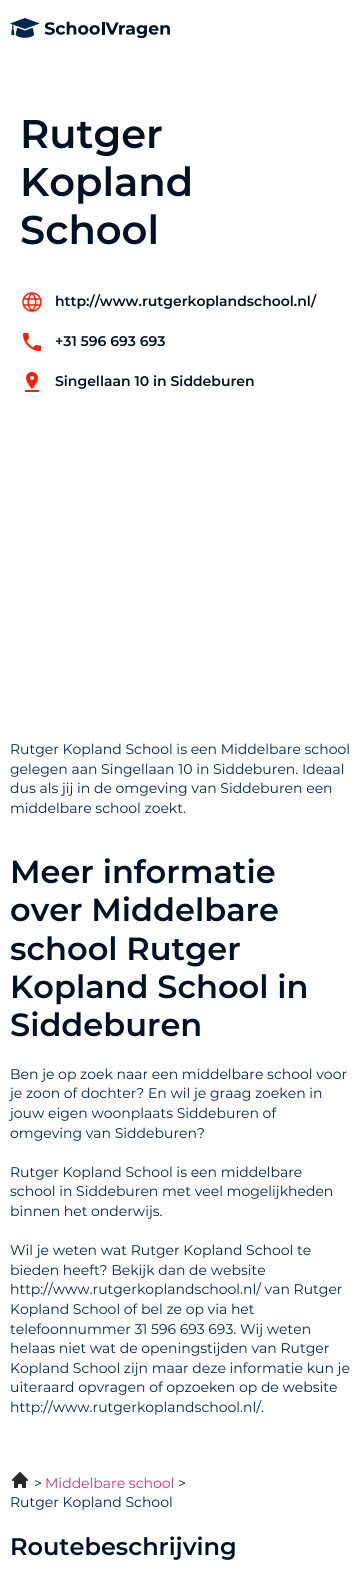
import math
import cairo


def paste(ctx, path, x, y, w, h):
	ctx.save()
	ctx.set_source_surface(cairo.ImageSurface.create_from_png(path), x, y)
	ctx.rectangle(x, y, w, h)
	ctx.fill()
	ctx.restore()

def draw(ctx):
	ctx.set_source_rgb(1, 1, 1)
	ctx.paint()
	paste(ctx, 'media/1.png', 10, 18, 160, 20)
	ctx.select_font_face('Montserrat SemiBold')
	ctx.set_font_size(40)
	ctx.set_source_rgb(0, 0.067, 0.137)
	for x, y, s in [
		(20, 148, 'Rutger'),
		(20, 196, 'Kopland'),
		(20, 244, 'School'),
	]:
		ctx.move_to(x, y)
		ctx.show_text(s)
	paste(ctx, 'media/2.png', 22, 292, 20, 20)
	ctx.set_font_size(14)
	ctx.move_to(55, 306)
	ctx.show_text('http://www.rutgerkoplandschool.nl/')
	paste(ctx, 'media/3.png', 23, 333, 18, 18)
	ctx.move_to(55, 346)
	ctx.show_text('+31 596 693 693')
	paste(ctx, 'media/4.png', 25, 372, 14, 20)
	ctx.move_to(55, 386)
	ctx.show_text('Singellaan 10 in Siddeburen')
	ctx.select_font_face('Montserrat')
	ctx.set_source_rgb(0, 0.145, 0.298)
	for x, y, s in [
		(10, 754, 'Rutger Kopland School is een Middelbare school'),
		(10, 774, 'gelegen aan Singellaan 10 in Siddeburen. Ideaal'),
		(10, 793, 'dus als jij in de omgeving van Siddeburen een'),
		(10, 813, 'middelbare school zoekt.'),
	]:
		ctx.move_to(x, y)
		ctx.show_text(s)
	ctx.select_font_face('Montserrat SemiBold')
	ctx.set_font_size(32)
	ctx.set_source_rgb(0, 0.067, 0.137)
	for x, y, s in [
		(10, 883, 'Meer informatie'),
		(10, 921, 'over Middelbare'),
		(10, 960, 'school Rutger'),
		(10, 998, 'Kopland School in'),
		(10, 1036, 'Siddeburen'),
	]:
		ctx.move_to(x, y)
		ctx.show_text(s)
	ctx.select_font_face('Montserrat')
	ctx.set_font_size(14)
	ctx.set_source_rgb(0, 0.145, 0.298)
	for x, y, s in [
		(10, 1079, 'Ben je op zoek naar een middelbare school voor'),
		(10, 1098, 'je zoon of dochter? En wil je graag zoeken in'),
		(10, 1118, 'jouw eigen woonplaats Siddeburen of'),
		(10, 1138, 'omgeving van Siddeburen?'),
		(10, 1177, 'Rutger Kopland School is een middelbare'),
		(10, 1196, 'school in Siddeburen met veel mogelijkheden'),
		(10, 1216, 'binnen het onderwijs.'),
		(10, 1255, 'Wil je weten wat Rutger Kopland School te'),
		(10, 1275, 'bieden heeft? Bekijk dan de website'),
		(10, 1294, 'http://www.rutgerkoplandschool.nl/ van Rutger'),
		(10, 1314, 'Kopland School of bel ze op via het'),
		(10, 1334, 'telefoonnummer 31 596 693 693. Wij weten'),
		(10, 1353, 'helaas niet wat de openingstijden van Rutger'),
		(10, 1373, 'Kopland School zijn maar deze informatie kun je'),
		(10, 1392, 'uiteraard opvragen of opzoeken op de website'),
		(10, 1412, 'http://www.rutgerkoplandschool.nl/.'),
	]:
		ctx.move_to(x, y)
		ctx.show_text(s)
	paste(ctx, 'media/5.png', 12, 1472, 16, 16)
	ctx.move_to(34, 1488)
	ctx.show_text('>')
	ctx.set_source_rgb(0.8, 0.2, 0.4)
	ctx.move_to(45, 1488)
	ctx.show_text('Middelbare school')
	ctx.set_source_rgb(0, 0.145, 0.298)
	ctx.move_to(178, 1488)
	ctx.show_text('>')
	ctx.move_to(10, 1507)
	ctx.show_text('Rutger Kopland School')
	ctx.select_font_face('Montserrat SemiBold')
	ctx.set_font_size(24)
	ctx.set_source_rgb(0, 0.067, 0.137)
	ctx.move_to(10, 1555)
	ctx.show_text('Routebeschrijving')


surface = cairo.ImageSurface(cairo.FORMAT_RGB24, 361, 1578)
ctx = cairo.Context(surface)
options = cairo.FontOptions()
options.set_hint_metrics(cairo.HINT_METRICS_OFF)
options.set_hint_style(cairo.HINT_STYLE_NONE)
ctx.set_font_options(options)
ctx.set_miter_limit(4)
draw(ctx)
surface.write_to_png('image.png')
